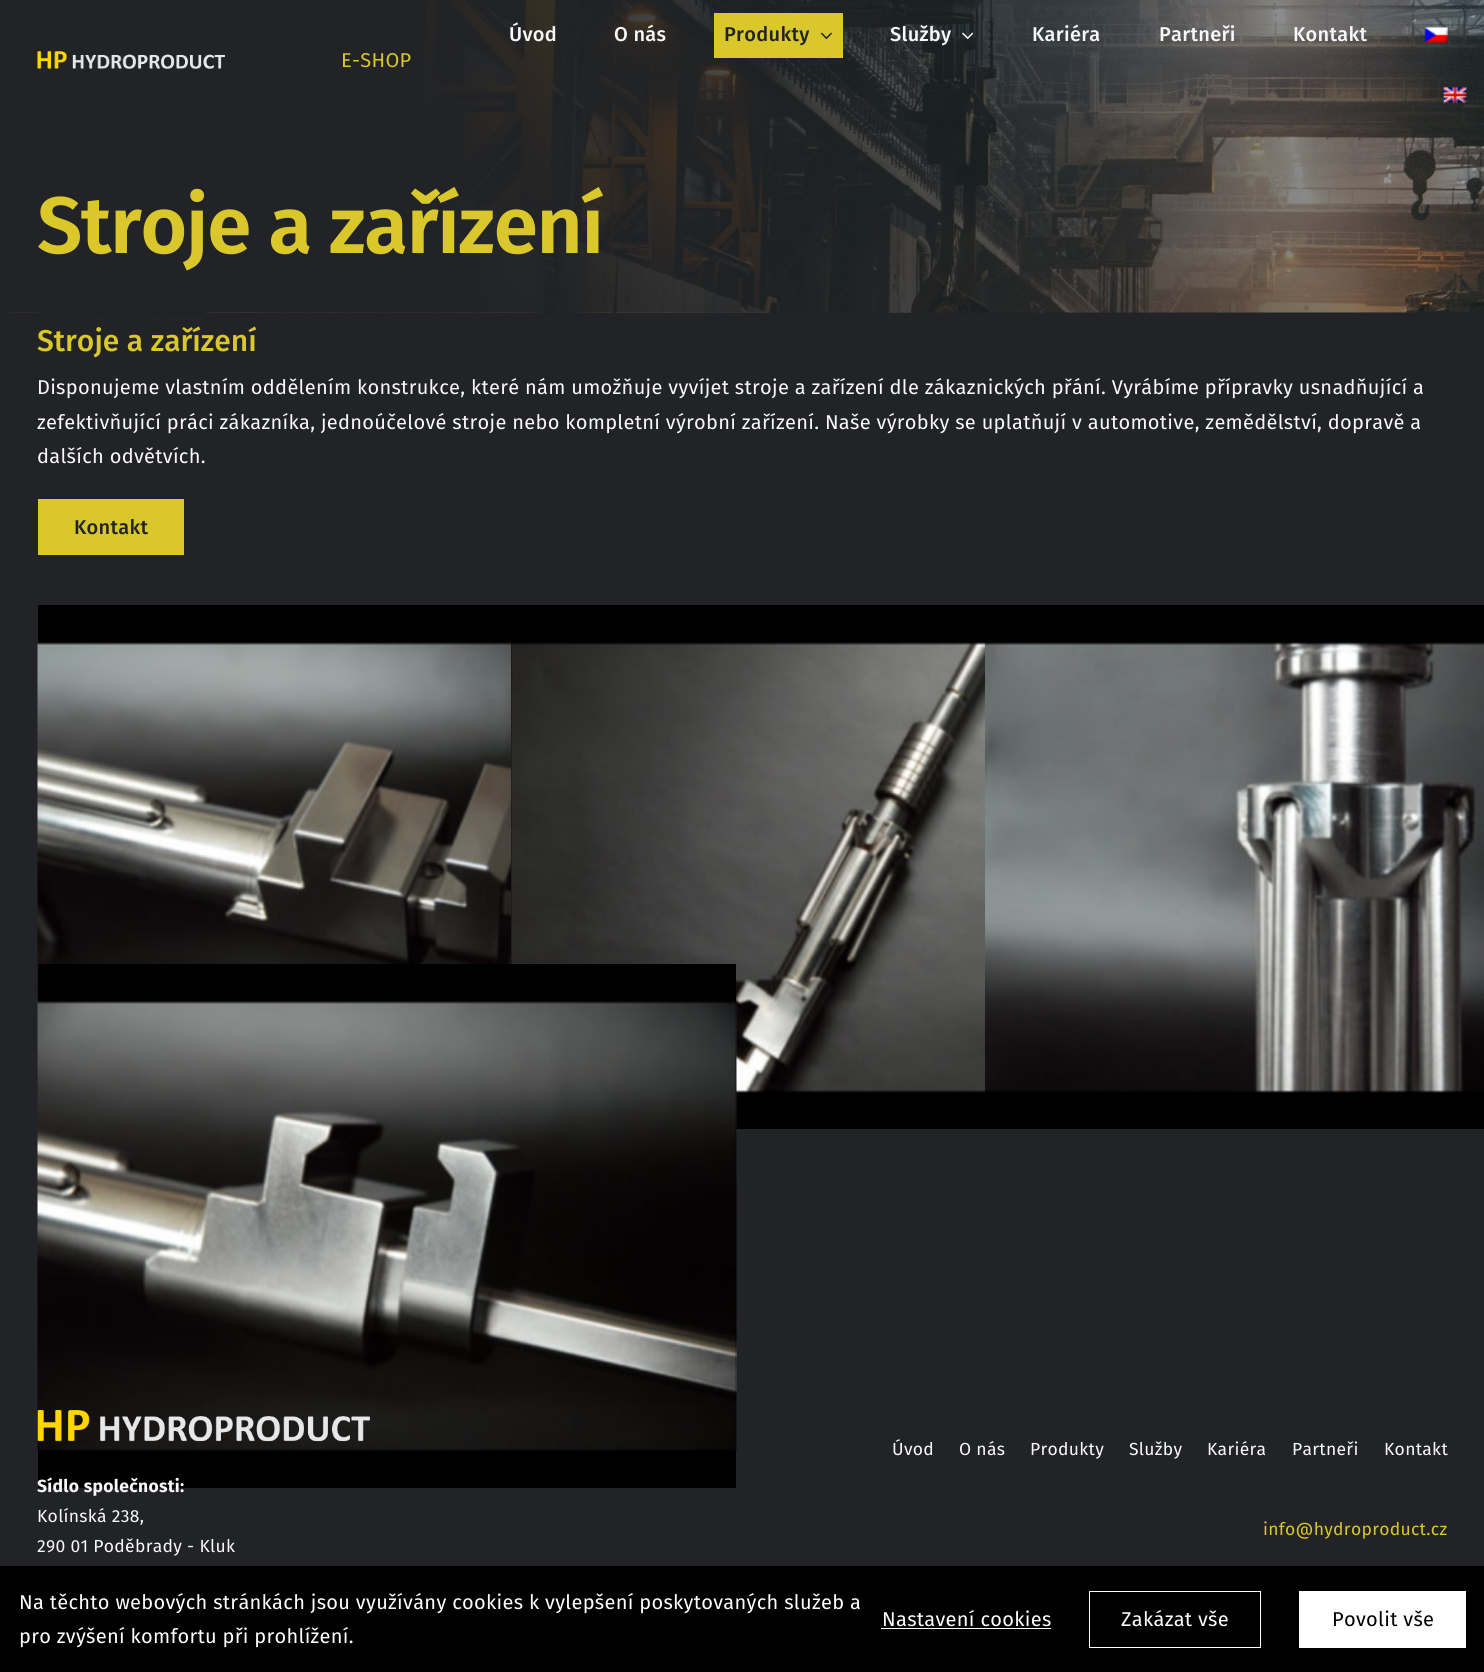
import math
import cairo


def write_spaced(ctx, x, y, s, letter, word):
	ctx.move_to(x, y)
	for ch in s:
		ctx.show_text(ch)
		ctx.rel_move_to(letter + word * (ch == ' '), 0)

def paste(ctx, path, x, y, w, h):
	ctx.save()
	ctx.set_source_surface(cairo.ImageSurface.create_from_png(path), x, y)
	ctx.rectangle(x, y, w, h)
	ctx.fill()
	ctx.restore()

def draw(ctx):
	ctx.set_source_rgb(0.129, 0.137, 0.149)
	ctx.paint()
	paste(ctx, 'media/6.png', 0, 0, 1484, 313)
	ctx.select_font_face('Fira Sans Medium')
	ctx.set_font_size(20)
	ctx.set_source_rgb(0.976, 0.976, 0.984)
	write_spaced(ctx, 509, 41, 'Úvod', 0.3, 0)
	write_spaced(ctx, 614, 41, 'O nás', 0.3, 0)
	ctx.set_source_rgb(0.851, 0.78, 0.169)
	ctx.rectangle(714, 13, 129, 45)
	ctx.fill()
	ctx.set_source_rgb(0.129, 0.137, 0.149)
	write_spaced(ctx, 724, 41, 'Produkty', 0.3, 0)
	paste(ctx, 'media/1.png', 820, 32, 12, 8)
	ctx.set_source_rgb(0.976, 0.976, 0.984)
	write_spaced(ctx, 890, 41, 'Služby', 0.3, 0)
	paste(ctx, 'media/2.png', 962, 32, 12, 8)
	for x, y, s in [
		(1032, 41, 'Kariéra'),
		(1159, 41, 'Partneři'),
		(1293, 41, 'Kontakt'),
	]:
		write_spaced(ctx, x, y, s, 0.3, 0)
	paste(ctx, 'media/3.png', 1424, 27, 24, 17)
	paste(ctx, 'media/4.png', 1443, 87, 24, 17)
	paste(ctx, 'media/5.png', 37, 51, 188, 18)
	ctx.select_font_face('Fira Sans')
	ctx.set_source_rgb(0.851, 0.78, 0.169)
	write_spaced(ctx, 341, 67, 'E-SHOP', 0.3, 0)
	ctx.select_font_face('Fira Sans SemiBold')
	ctx.set_font_size(80)
	write_spaced(ctx, 37, 253, 'Stroje a zařízení', -1.25, 0)
	ctx.select_font_face('Fira Sans Medium')
	ctx.set_font_size(30)
	ctx.move_to(37, 351)
	ctx.show_text('Stroje a zařízení')
	ctx.select_font_face('Fira Sans')
	ctx.set_font_size(20)
	ctx.set_source_rgb(0.976, 0.976, 0.984)
	for x, y, s in [
		(37, 394, 'Disponujeme vlastním oddělením konstrukce, které nám umožňuje vyvíjet stroje a zařízení dle zákaznických přání. Vyrábíme přípravky usnadňující a'),
		(37, 429, 'zefektivňující práci zákazníka, jednoúčelové stroje nebo kompletní výrobní zařízení. Naše výrobky se uplatňují v automotive, zemědělství, dopravě a'),
		(37, 463, 'dalších odvětvích.'),
	]:
		write_spaced(ctx, x, y, s, 0.3, 0)
	ctx.set_source_rgb(0.851, 0.78, 0.169)
	ctx.rectangle(38, 499, 146, 56)
	ctx.fill()
	ctx.select_font_face('Fira Sans Medium')
	ctx.set_source_rgb(0.129, 0.137, 0.149)
	write_spaced(ctx, 74, 534, 'Kontakt', 0.3, 0)
	ctx.set_source_rgb(0, 0, 0)
	ctx.rectangle(38, 605, 473, 40)
	ctx.fill()
	paste(ctx, 'media/7.png', 37, 642, 474, 450)
	ctx.rectangle(511, 605, 973, 524)
	ctx.fill()
	paste(ctx, 'media/8.png', 511, 642, 474, 451)
	paste(ctx, 'media/9.png', 985, 642, 499, 451)
	ctx.rectangle(38, 964, 698, 524)
	ctx.fill()
	paste(ctx, 'media/10.png', 37, 1001, 700, 450)
	paste(ctx, 'media/11.png', 37, 1410, 333, 32)
	ctx.select_font_face('Fira Sans', cairo.FONT_SLANT_NORMAL, cairo.FONT_WEIGHT_BOLD)
	ctx.set_font_size(17.5)
	ctx.set_source_rgb(0.976, 0.976, 0.984)
	write_spaced(ctx, 37, 1492, 'Sídlo společnosti:', 0.3, 0)
	ctx.select_font_face('Fira Sans')
	for x, y, s in [
		(37, 1522, 'Kolínská 238,'),
		(37, 1552, '290 01 Poděbrady - Kluk'),
		(892, 1455, 'Úvod'),
		(959, 1455, 'O nás'),
		(1030, 1455, 'Produkty'),
		(1129, 1455, 'Služby'),
		(1207, 1455, 'Kariéra'),
		(1292, 1455, 'Partneři'),
		(1384, 1455, 'Kontakt'),
	]:
		write_spaced(ctx, x, y, s, 0.3, 0)
	ctx.set_source_rgb(0.851, 0.78, 0.169)
	write_spaced(ctx, 1263, 1535, 'info@hydroproduct.cz', 0.3, 0)
	ctx.set_source_rgb(0, 0, 0)
	ctx.rectangle(0, 1566, 1484, 106)
	ctx.fill()
	ctx.set_font_size(20)
	ctx.set_source_rgb(1, 1, 1)
	for x, y, s in [
		(19, 1609, 'Na těchto webových stránkách jsou využívány cookies k vylepšení poskytovaných služeb a'),
		(19, 1643, 'pro zvýšení komfortu při prohlížení.'),
		(882, 1626, 'Nastavení cookies'),
	]:
		write_spaced(ctx, x, y, s, 0.3, 0)
	ctx.rectangle(881, 1628, 170, 1)
	ctx.fill()
	ctx.rectangle(1089.5, 1591.5, 171, 56)
	ctx.set_line_width(1)
	ctx.stroke()
	write_spaced(ctx, 1121, 1626, 'Zakázat vše', 0.3, 0)
	ctx.rectangle(1299, 1591, 167, 57)
	ctx.fill()
	ctx.set_source_rgb(0, 0, 0)
	write_spaced(ctx, 1332, 1626, 'Povolit vše', 0.3, 0)


surface = cairo.ImageSurface(cairo.FORMAT_RGB24, 1484, 1672)
ctx = cairo.Context(surface)
options = cairo.FontOptions()
options.set_hint_metrics(cairo.HINT_METRICS_OFF)
options.set_hint_style(cairo.HINT_STYLE_NONE)
ctx.set_font_options(options)
ctx.set_miter_limit(4)
draw(ctx)
surface.write_to_png('image.png')
